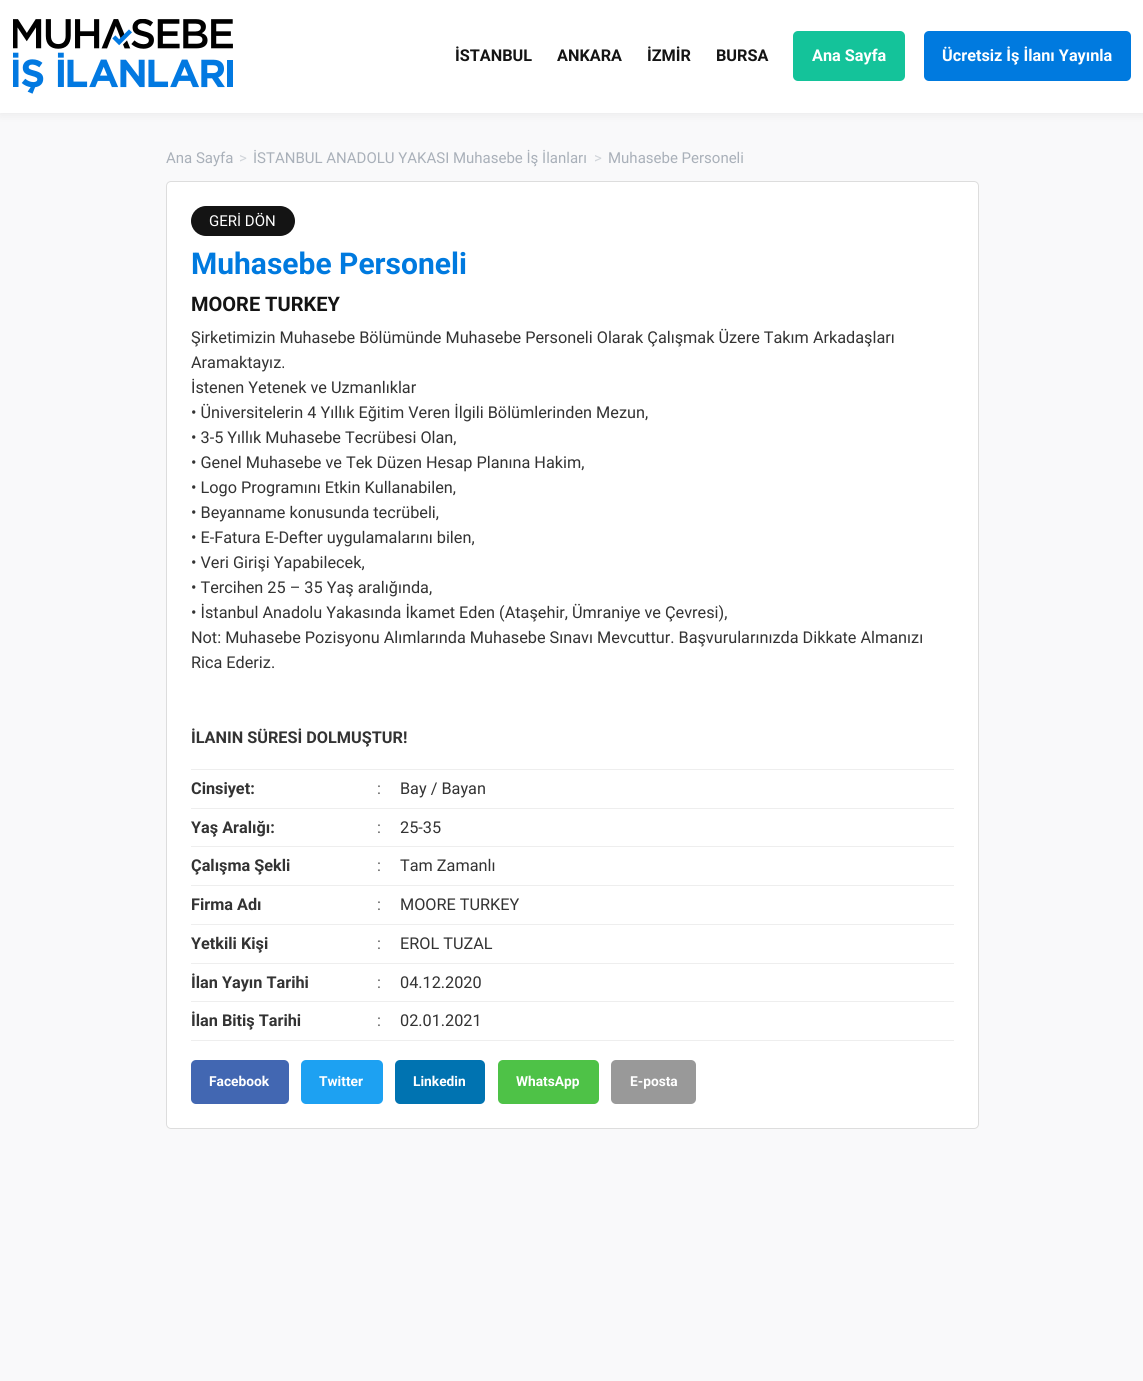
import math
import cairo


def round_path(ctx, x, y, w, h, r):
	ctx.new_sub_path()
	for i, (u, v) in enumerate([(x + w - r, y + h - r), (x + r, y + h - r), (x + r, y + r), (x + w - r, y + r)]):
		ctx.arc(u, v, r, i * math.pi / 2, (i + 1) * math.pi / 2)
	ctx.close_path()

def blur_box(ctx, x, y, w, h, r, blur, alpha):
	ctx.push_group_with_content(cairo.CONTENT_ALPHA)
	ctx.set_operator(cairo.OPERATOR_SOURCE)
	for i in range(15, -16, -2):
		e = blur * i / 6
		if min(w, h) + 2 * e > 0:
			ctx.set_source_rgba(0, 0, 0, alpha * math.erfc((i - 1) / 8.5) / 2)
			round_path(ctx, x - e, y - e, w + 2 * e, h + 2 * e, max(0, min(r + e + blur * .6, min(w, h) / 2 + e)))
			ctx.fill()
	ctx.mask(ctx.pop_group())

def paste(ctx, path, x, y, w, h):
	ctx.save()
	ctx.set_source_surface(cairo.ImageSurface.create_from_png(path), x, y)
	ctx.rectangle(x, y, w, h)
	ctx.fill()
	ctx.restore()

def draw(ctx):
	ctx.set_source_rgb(0.973, 0.976, 0.98)
	ctx.paint()
	ctx.set_source_rgb(0, 0, 0)
	blur_box(ctx, 0, 0, 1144, 113, 0, 6, 0.08)
	ctx.set_source_rgb(1, 1, 1)
	ctx.rectangle(0, 0, 1143, 113)
	ctx.fill()
	paste(ctx, 'media/1.png', 13, 19, 220, 75)
	ctx.select_font_face('Roboto', cairo.FONT_SLANT_NORMAL, cairo.FONT_WEIGHT_BOLD)
	ctx.set_font_size(16.25)
	ctx.set_source_rgb(0.082, 0.082, 0.082)
	for x, y, s in [
		(455, 61, 'İSTANBUL'),
		(557, 61, 'ANKARA'),
		(647, 61, 'İZMİR'),
		(716, 61, 'BURSA'),
	]:
		ctx.move_to(x, y)
		ctx.show_text(s)
	ctx.set_source_rgb(0.082, 0.765, 0.604)
	round_path(ctx, 793, 31, 112, 50, 5)
	ctx.fill()
	ctx.set_source_rgb(1, 1, 1)
	ctx.move_to(812, 61)
	ctx.show_text('Ana Sayfa')
	ctx.set_source_rgb(0, 0.478, 0.875)
	round_path(ctx, 924, 31, 207, 50, 5)
	ctx.fill()
	ctx.set_source_rgb(1, 1, 1)
	ctx.move_to(942, 61)
	ctx.show_text('Ücretsiz İş İlanı Yayınla')
	ctx.select_font_face('Roboto')
	ctx.set_font_size(15)
	ctx.set_source_rgb(0.663, 0.69, 0.725)
	ctx.move_to(166, 163)
	ctx.show_text('Ana Sayfa')
	ctx.set_source_rgb(0.82, 0.835, 0.855)
	ctx.move_to(239, 163)
	ctx.show_text('>')
	ctx.set_source_rgb(0.663, 0.69, 0.725)
	ctx.move_to(253, 163)
	ctx.show_text('İSTANBUL ANADOLU YAKASI Muhasebe İş İlanları')
	ctx.set_source_rgb(0.82, 0.835, 0.855)
	ctx.move_to(594, 163)
	ctx.show_text('>')
	ctx.set_source_rgb(0.663, 0.69, 0.725)
	ctx.move_to(608, 163)
	ctx.show_text('Muhasebe Personeli')
	ctx.set_source_rgb(1, 1, 1)
	round_path(ctx, 166.5, 181.5, 812, 947, 4.5)
	ctx.fill_preserve()
	ctx.set_source_rgb(0.867, 0.867, 0.867)
	ctx.set_line_width(1)
	ctx.stroke()
	ctx.set_source_rgb(0.082, 0.082, 0.082)
	round_path(ctx, 191, 206, 104, 30, 15)
	ctx.fill()
	ctx.set_source_rgb(1, 1, 1)
	ctx.move_to(209, 226)
	ctx.show_text('GERİ DÖN')
	ctx.select_font_face('Roboto', cairo.FONT_SLANT_NORMAL, cairo.FONT_WEIGHT_BOLD)
	ctx.set_font_size(30)
	ctx.set_source_rgb(0, 0.478, 0.875)
	ctx.move_to(191, 274)
	ctx.show_text('Muhasebe Personeli')
	ctx.set_font_size(20)
	ctx.set_source_rgb(0.082, 0.082, 0.082)
	ctx.move_to(191, 311)
	ctx.show_text('MOORE TURKEY')
	ctx.select_font_face('Roboto')
	ctx.set_font_size(16.25)
	ctx.set_source_rgb(0.2, 0.2, 0.2)
	for x, y, s in [
		(191, 343, 'Şirketimizin Muhasebe Bölümünde Muhasebe Personeli Olarak Çalışmak Üzere Takım Arkadaşları'),
		(191, 368, 'Aramaktayız.'),
		(191, 393, 'İstenen Yetenek ve Uzmanlıklar'),
		(191, 418, '• Üniversitelerin 4 Yıllık Eğitim Veren İlgili Bölümlerinden Mezun,'),
		(191, 443, '• 3-5 Yıllık Muhasebe Tecrübesi Olan,'),
		(191, 468, '• Genel Muhasebe ve Tek Düzen Hesap Planına Hakim,'),
		(191, 493, '• Logo Programını Etkin Kullanabilen,'),
		(191, 518, '• Beyanname konusunda tecrübeli,'),
		(191, 543, '• E-Fatura E-Defter uygulamalarını bilen,'),
		(191, 568, '• Veri Girişi Yapabilecek,'),
		(191, 593, '• Tercihen 25 – 35 Yaş aralığında,'),
		(191, 618, '• İstanbul Anadolu Yakasında İkamet Eden (Ataşehir, Ümraniye ve Çevresi),'),
		(191, 643, 'Not: Muhasebe Pozisyonu Alımlarında Muhasebe Sınavı Mevcuttur. Başvurularınızda Dikkate Almanızı'),
		(191, 668, 'Rica Ederiz.'),
	]:
		ctx.move_to(x, y)
		ctx.show_text(s)
	ctx.select_font_face('Roboto', cairo.FONT_SLANT_NORMAL, cairo.FONT_WEIGHT_BOLD)
	ctx.move_to(191, 743)
	ctx.show_text('İLANIN SÜRESİ DOLMUŞTUR!')
	ctx.set_source_rgb(0.933, 0.933, 0.933)
	ctx.rectangle(191, 1040, 763, 1)
	ctx.fill()
	ctx.rectangle(191, 769, 763, 1)
	ctx.fill()
	ctx.set_source_rgb(0.2, 0.2, 0.2)
	ctx.move_to(191, 794)
	ctx.show_text('Cinsiyet:')
	ctx.select_font_face('Roboto')
	ctx.set_source_rgb(0.4, 0.4, 0.4)
	ctx.move_to(377, 794)
	ctx.show_text(':')
	ctx.set_source_rgb(0.2, 0.2, 0.2)
	ctx.move_to(400, 794)
	ctx.show_text('Bay / Bayan')
	ctx.set_source_rgb(0.933, 0.933, 0.933)
	ctx.rectangle(191, 808, 763, 1)
	ctx.fill()
	ctx.select_font_face('Roboto', cairo.FONT_SLANT_NORMAL, cairo.FONT_WEIGHT_BOLD)
	ctx.set_source_rgb(0.2, 0.2, 0.2)
	ctx.move_to(191, 833)
	ctx.show_text('Yaş Aralığı:')
	ctx.select_font_face('Roboto')
	ctx.set_source_rgb(0.4, 0.4, 0.4)
	ctx.move_to(377, 833)
	ctx.show_text(':')
	ctx.set_source_rgb(0.2, 0.2, 0.2)
	ctx.move_to(400, 833)
	ctx.show_text('25-35')
	ctx.set_source_rgb(0.933, 0.933, 0.933)
	ctx.rectangle(191, 846, 763, 1)
	ctx.fill()
	ctx.select_font_face('Roboto', cairo.FONT_SLANT_NORMAL, cairo.FONT_WEIGHT_BOLD)
	ctx.set_source_rgb(0.2, 0.2, 0.2)
	ctx.move_to(191, 871)
	ctx.show_text('Çalışma Şekli')
	ctx.select_font_face('Roboto')
	ctx.set_source_rgb(0.4, 0.4, 0.4)
	ctx.move_to(377, 871)
	ctx.show_text(':')
	ctx.set_source_rgb(0.2, 0.2, 0.2)
	ctx.move_to(400, 871)
	ctx.show_text('Tam Zamanlı')
	ctx.set_source_rgb(0.933, 0.933, 0.933)
	ctx.rectangle(191, 885, 763, 1)
	ctx.fill()
	ctx.select_font_face('Roboto', cairo.FONT_SLANT_NORMAL, cairo.FONT_WEIGHT_BOLD)
	ctx.set_source_rgb(0.2, 0.2, 0.2)
	ctx.move_to(191, 910)
	ctx.show_text('Firma Adı')
	ctx.select_font_face('Roboto')
	ctx.set_source_rgb(0.4, 0.4, 0.4)
	ctx.move_to(377, 910)
	ctx.show_text(':')
	ctx.set_source_rgb(0.2, 0.2, 0.2)
	ctx.move_to(400, 910)
	ctx.show_text('MOORE TURKEY')
	ctx.set_source_rgb(0.933, 0.933, 0.933)
	ctx.rectangle(191, 924, 763, 1)
	ctx.fill()
	ctx.select_font_face('Roboto', cairo.FONT_SLANT_NORMAL, cairo.FONT_WEIGHT_BOLD)
	ctx.set_source_rgb(0.2, 0.2, 0.2)
	ctx.move_to(191, 949)
	ctx.show_text('Yetkili Kişi')
	ctx.select_font_face('Roboto')
	ctx.set_source_rgb(0.4, 0.4, 0.4)
	ctx.move_to(377, 949)
	ctx.show_text(':')
	ctx.set_source_rgb(0.2, 0.2, 0.2)
	ctx.move_to(400, 949)
	ctx.show_text('EROL TUZAL')
	ctx.set_source_rgb(0.933, 0.933, 0.933)
	ctx.rectangle(191, 963, 763, 1)
	ctx.fill()
	ctx.select_font_face('Roboto', cairo.FONT_SLANT_NORMAL, cairo.FONT_WEIGHT_BOLD)
	ctx.set_source_rgb(0.2, 0.2, 0.2)
	ctx.move_to(191, 988)
	ctx.show_text('İlan Yayın Tarihi')
	ctx.select_font_face('Roboto')
	ctx.set_source_rgb(0.4, 0.4, 0.4)
	ctx.move_to(377, 988)
	ctx.show_text(':')
	ctx.set_source_rgb(0.2, 0.2, 0.2)
	ctx.move_to(400, 988)
	ctx.show_text('04.12.2020')
	ctx.set_source_rgb(0.933, 0.933, 0.933)
	ctx.rectangle(191, 1001, 763, 1)
	ctx.fill()
	ctx.select_font_face('Roboto', cairo.FONT_SLANT_NORMAL, cairo.FONT_WEIGHT_BOLD)
	ctx.set_source_rgb(0.2, 0.2, 0.2)
	ctx.move_to(191, 1026)
	ctx.show_text('İlan Bitiş Tarihi')
	ctx.select_font_face('Roboto')
	ctx.set_source_rgb(0.4, 0.4, 0.4)
	ctx.move_to(377, 1026)
	ctx.show_text(':')
	ctx.set_source_rgb(0.2, 0.2, 0.2)
	ctx.move_to(400, 1026)
	ctx.show_text('02.01.2021')
	ctx.set_source_rgb(0.259, 0.404, 0.698)
	round_path(ctx, 191, 1060, 98, 44, 5)
	ctx.fill()
	ctx.select_font_face('Roboto', cairo.FONT_SLANT_NORMAL, cairo.FONT_WEIGHT_BOLD)
	ctx.set_font_size(13.75)
	ctx.set_source_rgb(1, 1, 1)
	ctx.move_to(209, 1086)
	ctx.show_text('Facebook')
	ctx.set_source_rgb(0.114, 0.631, 0.949)
	round_path(ctx, 301, 1060, 82, 44, 5)
	ctx.fill()
	ctx.set_source_rgb(1, 1, 1)
	ctx.move_to(319, 1086)
	ctx.show_text('Twitter')
	ctx.set_source_rgb(0, 0.451, 0.694)
	round_path(ctx, 395, 1060, 90, 44, 5)
	ctx.fill()
	ctx.set_source_rgb(1, 1, 1)
	ctx.move_to(413, 1086)
	ctx.show_text('Linkedin')
	ctx.set_source_rgb(0.306, 0.761, 0.278)
	round_path(ctx, 498, 1060, 101, 44, 5)
	ctx.fill()
	ctx.set_source_rgb(1, 1, 1)
	ctx.move_to(516, 1086)
	ctx.show_text('WhatsApp')
	ctx.set_source_rgb(0.6, 0.6, 0.6)
	round_path(ctx, 611, 1060, 85, 44, 5)
	ctx.fill()
	ctx.set_source_rgb(1, 1, 1)
	ctx.move_to(630, 1086)
	ctx.show_text('E-posta')


surface = cairo.ImageSurface(cairo.FORMAT_RGB24, 1143, 1381)
ctx = cairo.Context(surface)
options = cairo.FontOptions()
options.set_hint_metrics(cairo.HINT_METRICS_OFF)
options.set_hint_style(cairo.HINT_STYLE_NONE)
ctx.set_font_options(options)
ctx.set_miter_limit(4)
draw(ctx)
surface.write_to_png('image.png')
